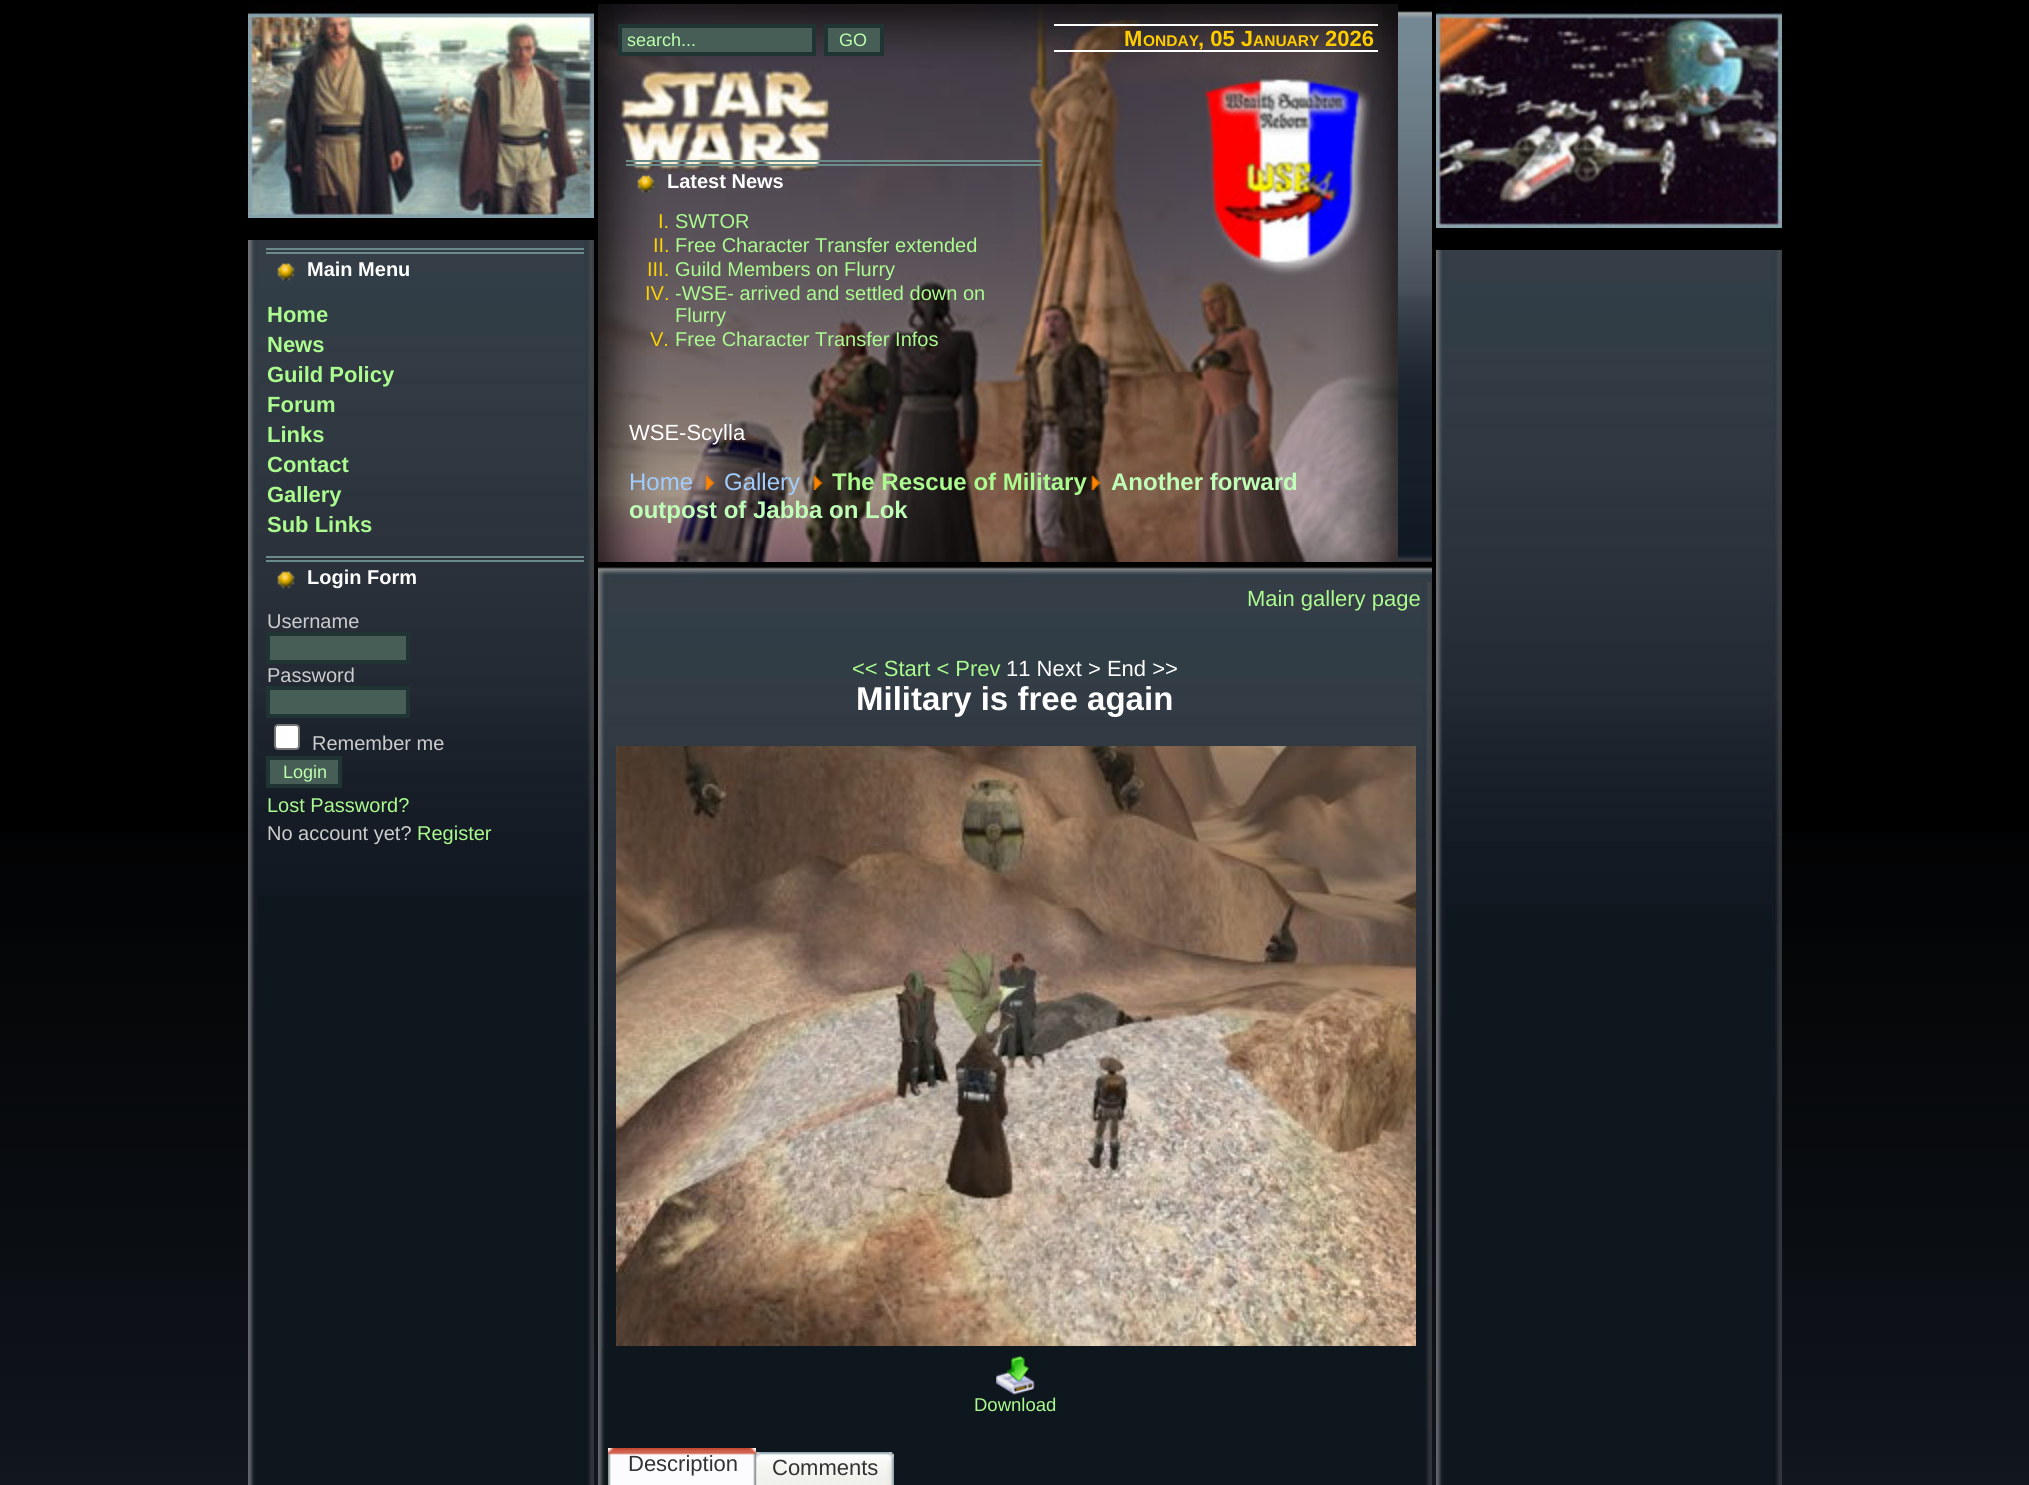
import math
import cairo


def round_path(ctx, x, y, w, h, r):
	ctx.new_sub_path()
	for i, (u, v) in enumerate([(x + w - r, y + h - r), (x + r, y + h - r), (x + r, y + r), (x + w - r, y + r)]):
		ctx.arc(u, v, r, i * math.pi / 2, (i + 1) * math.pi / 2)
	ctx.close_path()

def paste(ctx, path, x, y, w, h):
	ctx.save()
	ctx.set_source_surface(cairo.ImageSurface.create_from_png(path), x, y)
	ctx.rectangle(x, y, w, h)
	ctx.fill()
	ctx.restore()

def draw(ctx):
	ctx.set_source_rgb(0, 0, 0)
	ctx.paint()
	paste(ctx, 'media/1.png', 0, 833, 2029, 652)
	paste(ctx, 'media/2.png', 248, 4, 346, 214)
	paste(ctx, 'media/3.png', 248, 1007, 10, 478)
	paste(ctx, 'media/4.png', 248, 240, 10, 767)
	ctx.set_source_rgb(0.055, 0.086, 0.118)
	ctx.rectangle(258, 895, 326, 590)
	ctx.fill()
	paste(ctx, 'media/5.png', 258, 240, 326, 655)
	paste(ctx, 'media/6.png', 277, 263, 18, 18)
	ctx.set_source_rgb(0.416, 0.545, 0.529)
	ctx.rectangle(266, 248, 326, 2)
	ctx.fill()
	ctx.rectangle(266, 252, 326, 2)
	ctx.fill()
	ctx.select_font_face('Liberation Sans', cairo.FONT_SLANT_NORMAL, cairo.FONT_WEIGHT_BOLD)
	ctx.set_font_size(20)
	ctx.set_source_rgb(1, 1, 1)
	ctx.move_to(307, 276)
	ctx.show_text('Main Menu')
	ctx.set_font_size(22)
	ctx.set_source_rgb(0.671, 0.984, 0.561)
	for x, y, s in [
		(267, 322, 'Home'),
		(267, 352, 'News'),
		(267, 382, 'Guild Policy'),
		(267, 412, 'Forum'),
		(267, 442, 'Links'),
		(267, 472, 'Contact'),
		(267, 502, 'Gallery'),
		(267, 532, 'Sub Links'),
	]:
		ctx.move_to(x, y)
		ctx.show_text(s)
	paste(ctx, 'media/7.png', 277, 571, 18, 18)
	ctx.set_source_rgb(0.416, 0.545, 0.529)
	ctx.rectangle(266, 556, 326, 2)
	ctx.fill()
	ctx.rectangle(266, 560, 326, 2)
	ctx.fill()
	ctx.set_font_size(20)
	ctx.set_source_rgb(1, 1, 1)
	ctx.move_to(307, 584)
	ctx.show_text('Login Form')
	ctx.select_font_face('Liberation Sans')
	ctx.set_source_rgb(0.8, 0.8, 0.8)
	ctx.move_to(267, 628)
	ctx.show_text('Username')
	ctx.set_source_rgb(0.275, 0.369, 0.333)
	ctx.rectangle(268, 634, 140, 28)
	ctx.fill_preserve()
	ctx.set_source_rgb(0.125, 0.204, 0.204)
	ctx.set_line_width(4)
	ctx.stroke()
	ctx.set_source_rgb(0.8, 0.8, 0.8)
	ctx.move_to(267, 682)
	ctx.show_text('Password')
	ctx.set_source_rgb(0.275, 0.369, 0.333)
	ctx.rectangle(268, 688, 140, 28)
	ctx.fill_preserve()
	ctx.set_source_rgb(0.125, 0.204, 0.204)
	ctx.stroke()
	ctx.set_source_rgb(1, 1, 1)
	round_path(ctx, 275, 725, 24, 24, 3)
	ctx.fill_preserve()
	ctx.set_source_rgb(0.463, 0.463, 0.463)
	ctx.set_line_width(2)
	ctx.stroke()
	ctx.set_source_rgb(0.8, 0.8, 0.8)
	ctx.move_to(312, 750)
	ctx.show_text('Remember me')
	ctx.set_source_rgb(0.275, 0.369, 0.333)
	ctx.rectangle(268, 758, 72, 28)
	ctx.fill_preserve()
	ctx.set_source_rgb(0.125, 0.204, 0.204)
	ctx.set_line_width(4)
	ctx.stroke()
	ctx.set_font_size(18)
	ctx.set_source_rgb(0.737, 1, 0.678)
	ctx.move_to(283, 778)
	ctx.show_text('Login')
	ctx.set_font_size(20)
	ctx.set_source_rgb(0.671, 0.984, 0.561)
	ctx.move_to(267, 812)
	ctx.show_text('Lost Password?')
	ctx.set_source_rgb(0.8, 0.8, 0.8)
	ctx.move_to(267, 840)
	ctx.show_text('No account yet?')
	ctx.set_source_rgb(0.671, 0.984, 0.561)
	ctx.move_to(417, 840)
	ctx.show_text('Register')
	paste(ctx, 'media/8.png', 584, 1087, 10, 398)
	paste(ctx, 'media/9.png', 584, 240, 10, 847)
	paste(ctx, 'media/10.png', 1398, 11, 34, 551)
	paste(ctx, 'media/11.png', 598, 4, 800, 558)
	ctx.set_source_rgb(0.275, 0.369, 0.333)
	ctx.rectangle(620, 26, 194, 28)
	ctx.fill_preserve()
	ctx.set_source_rgb(0.125, 0.204, 0.204)
	ctx.stroke()
	ctx.set_font_size(18)
	ctx.set_source_rgb(0.737, 1, 0.678)
	ctx.move_to(627, 46)
	ctx.show_text('search...')
	ctx.set_source_rgb(0.275, 0.369, 0.333)
	ctx.rectangle(826, 26, 56, 28)
	ctx.fill_preserve()
	ctx.set_source_rgb(0.125, 0.204, 0.204)
	ctx.stroke()
	ctx.set_source_rgb(0.737, 1, 0.678)
	ctx.move_to(839, 46)
	ctx.show_text('GO')
	ctx.set_source_rgb(1, 1, 1)
	ctx.rectangle(1054, 24, 324, 2)
	ctx.fill()
	ctx.rectangle(1054, 50, 324, 2)
	ctx.fill()
	ctx.select_font_face('Liberation Sans', cairo.FONT_SLANT_NORMAL, cairo.FONT_WEIGHT_BOLD)
	ctx.set_font_size(22)
	ctx.set_source_rgb(1, 0.8, 0)
	ctx.move_to(1124, 46)
	ctx.show_text('M')
	ctx.set_font_size(15.5)
	ctx.move_to(1143, 46)
	ctx.show_text('ONDAY')
	ctx.set_font_size(22)
	ctx.move_to(1198, 46)
	ctx.show_text(', 05 J')
	ctx.set_font_size(15.5)
	ctx.move_to(1253, 46)
	ctx.show_text('ANUARY')
	ctx.set_font_size(22)
	ctx.move_to(1325, 46)
	ctx.show_text('2026')
	paste(ctx, 'media/12.png', 637, 175, 18, 18)
	ctx.set_source_rgb(0.416, 0.545, 0.529)
	ctx.rectangle(626, 160, 416, 2)
	ctx.fill()
	ctx.rectangle(626, 164, 416, 2)
	ctx.fill()
	ctx.set_font_size(20)
	ctx.set_source_rgb(1, 1, 1)
	ctx.move_to(667, 188)
	ctx.show_text('Latest News')
	ctx.select_font_face('Liberation Sans')
	ctx.set_source_rgb(1, 0.827, 0)
	ctx.move_to(658, 228)
	ctx.show_text('I.')
	ctx.set_source_rgb(0.671, 0.984, 0.561)
	ctx.move_to(675, 228)
	ctx.show_text('SWTOR')
	ctx.set_source_rgb(1, 0.827, 0)
	ctx.move_to(653, 252)
	ctx.show_text('II.')
	ctx.set_source_rgb(0.671, 0.984, 0.561)
	ctx.move_to(675, 252)
	ctx.show_text('Free Character Transfer extended')
	ctx.set_source_rgb(1, 0.827, 0)
	ctx.move_to(647, 276)
	ctx.show_text('III.')
	ctx.set_source_rgb(0.671, 0.984, 0.561)
	ctx.move_to(675, 276)
	ctx.show_text('Guild Members on Flurry')
	ctx.set_source_rgb(1, 0.827, 0)
	ctx.move_to(645, 300)
	ctx.show_text('IV.')
	ctx.set_source_rgb(0.671, 0.984, 0.561)
	ctx.move_to(675, 300)
	ctx.show_text('-WSE- arrived and settled down on')
	ctx.move_to(675, 322)
	ctx.show_text('Flurry')
	ctx.set_source_rgb(1, 0.827, 0)
	ctx.move_to(650, 346)
	ctx.show_text('V.')
	ctx.set_source_rgb(0.671, 0.984, 0.561)
	ctx.move_to(675, 346)
	ctx.show_text('Free Character Transfer Infos')
	ctx.set_font_size(22)
	ctx.set_source_rgb(1, 1, 1)
	ctx.move_to(629, 440)
	ctx.show_text('WSE-Scylla')
	ctx.set_font_size(24)
	ctx.set_source_rgb(0.627, 0.804, 1)
	ctx.move_to(629, 490)
	ctx.show_text('Home')
	paste(ctx, 'media/13.png', 705, 475, 10, 15)
	ctx.move_to(724, 490)
	ctx.show_text('Gallery')
	paste(ctx, 'media/14.png', 813, 475, 10, 15)
	ctx.select_font_face('Liberation Sans', cairo.FONT_SLANT_NORMAL, cairo.FONT_WEIGHT_BOLD)
	ctx.set_source_rgb(0.671, 0.984, 0.561)
	ctx.move_to(832, 490)
	ctx.show_text('The Rescue of Military')
	paste(ctx, 'media/15.png', 1091, 475, 10, 15)
	ctx.set_source_rgb(0.749, 1, 0.722)
	ctx.move_to(1111, 490)
	ctx.show_text('Another forward')
	ctx.move_to(629, 518)
	ctx.show_text('outpost of Jabba on Lok')
	paste(ctx, 'media/16.png', 1436, 4, 346, 224)
	paste(ctx, 'media/17.png', 1436, 1017, 10, 468)
	paste(ctx, 'media/4.png', 1436, 250, 10, 767)
	ctx.set_source_rgb(0.055, 0.086, 0.118)
	ctx.rectangle(1446, 905, 326, 580)
	ctx.fill()
	paste(ctx, 'media/5.png', 1446, 250, 326, 655)
	paste(ctx, 'media/18.png', 1772, 1097, 10, 388)
	paste(ctx, 'media/9.png', 1772, 250, 10, 847)
	paste(ctx, 'media/19.png', 598, 566, 834, 16)
	paste(ctx, 'media/20.png', 598, 568, 16, 14)
	paste(ctx, 'media/21.png', 598, 1349, 10, 136)
	paste(ctx, 'media/4.png', 598, 582, 10, 767)
	ctx.rectangle(608, 1237, 814, 248)
	ctx.fill()
	paste(ctx, 'media/22.png', 608, 582, 814, 655)
	ctx.select_font_face('Liberation Sans')
	ctx.set_font_size(22)
	ctx.set_source_rgb(0.671, 0.984, 0.561)
	ctx.move_to(1247, 606)
	ctx.show_text('Main gallery page')
	ctx.move_to(852, 676)
	ctx.show_text('<< Start < Prev')
	ctx.set_source_rgb(1, 1, 1)
	ctx.move_to(1006, 676)
	ctx.show_text('11 Next > End >>')
	ctx.select_font_face('Liberation Sans', cairo.FONT_SLANT_NORMAL, cairo.FONT_WEIGHT_BOLD)
	ctx.set_font_size(33)
	ctx.move_to(856, 710)
	ctx.show_text('Military is free again')
	paste(ctx, 'media/23.png', 616, 746, 800, 600)
	paste(ctx, 'media/24.png', 996, 1356, 39, 39)
	ctx.select_font_face('Liberation Sans')
	ctx.set_font_size(18.5)
	ctx.set_source_rgb(0.671, 0.984, 0.561)
	ctx.move_to(974, 1411)
	ctx.show_text('Download')
	paste(ctx, 'media/25.png', 608, 1448, 148, 37)
	ctx.set_font_size(22)
	ctx.set_source_rgb(0.2, 0.2, 0.2)
	ctx.move_to(628, 1471)
	ctx.show_text('Description')
	paste(ctx, 'media/26.png', 756, 1452, 138, 33)
	ctx.move_to(772, 1475)
	ctx.show_text('Comments')
	paste(ctx, 'media/27.png', 1422, 1429, 10, 56)
	paste(ctx, 'media/9.png', 1422, 582, 10, 847)


surface = cairo.ImageSurface(cairo.FORMAT_RGB24, 2029, 1485)
ctx = cairo.Context(surface)
options = cairo.FontOptions()
options.set_hint_metrics(cairo.HINT_METRICS_OFF)
options.set_hint_style(cairo.HINT_STYLE_NONE)
ctx.set_font_options(options)
ctx.set_miter_limit(4)
draw(ctx)
surface.write_to_png('image.png')
